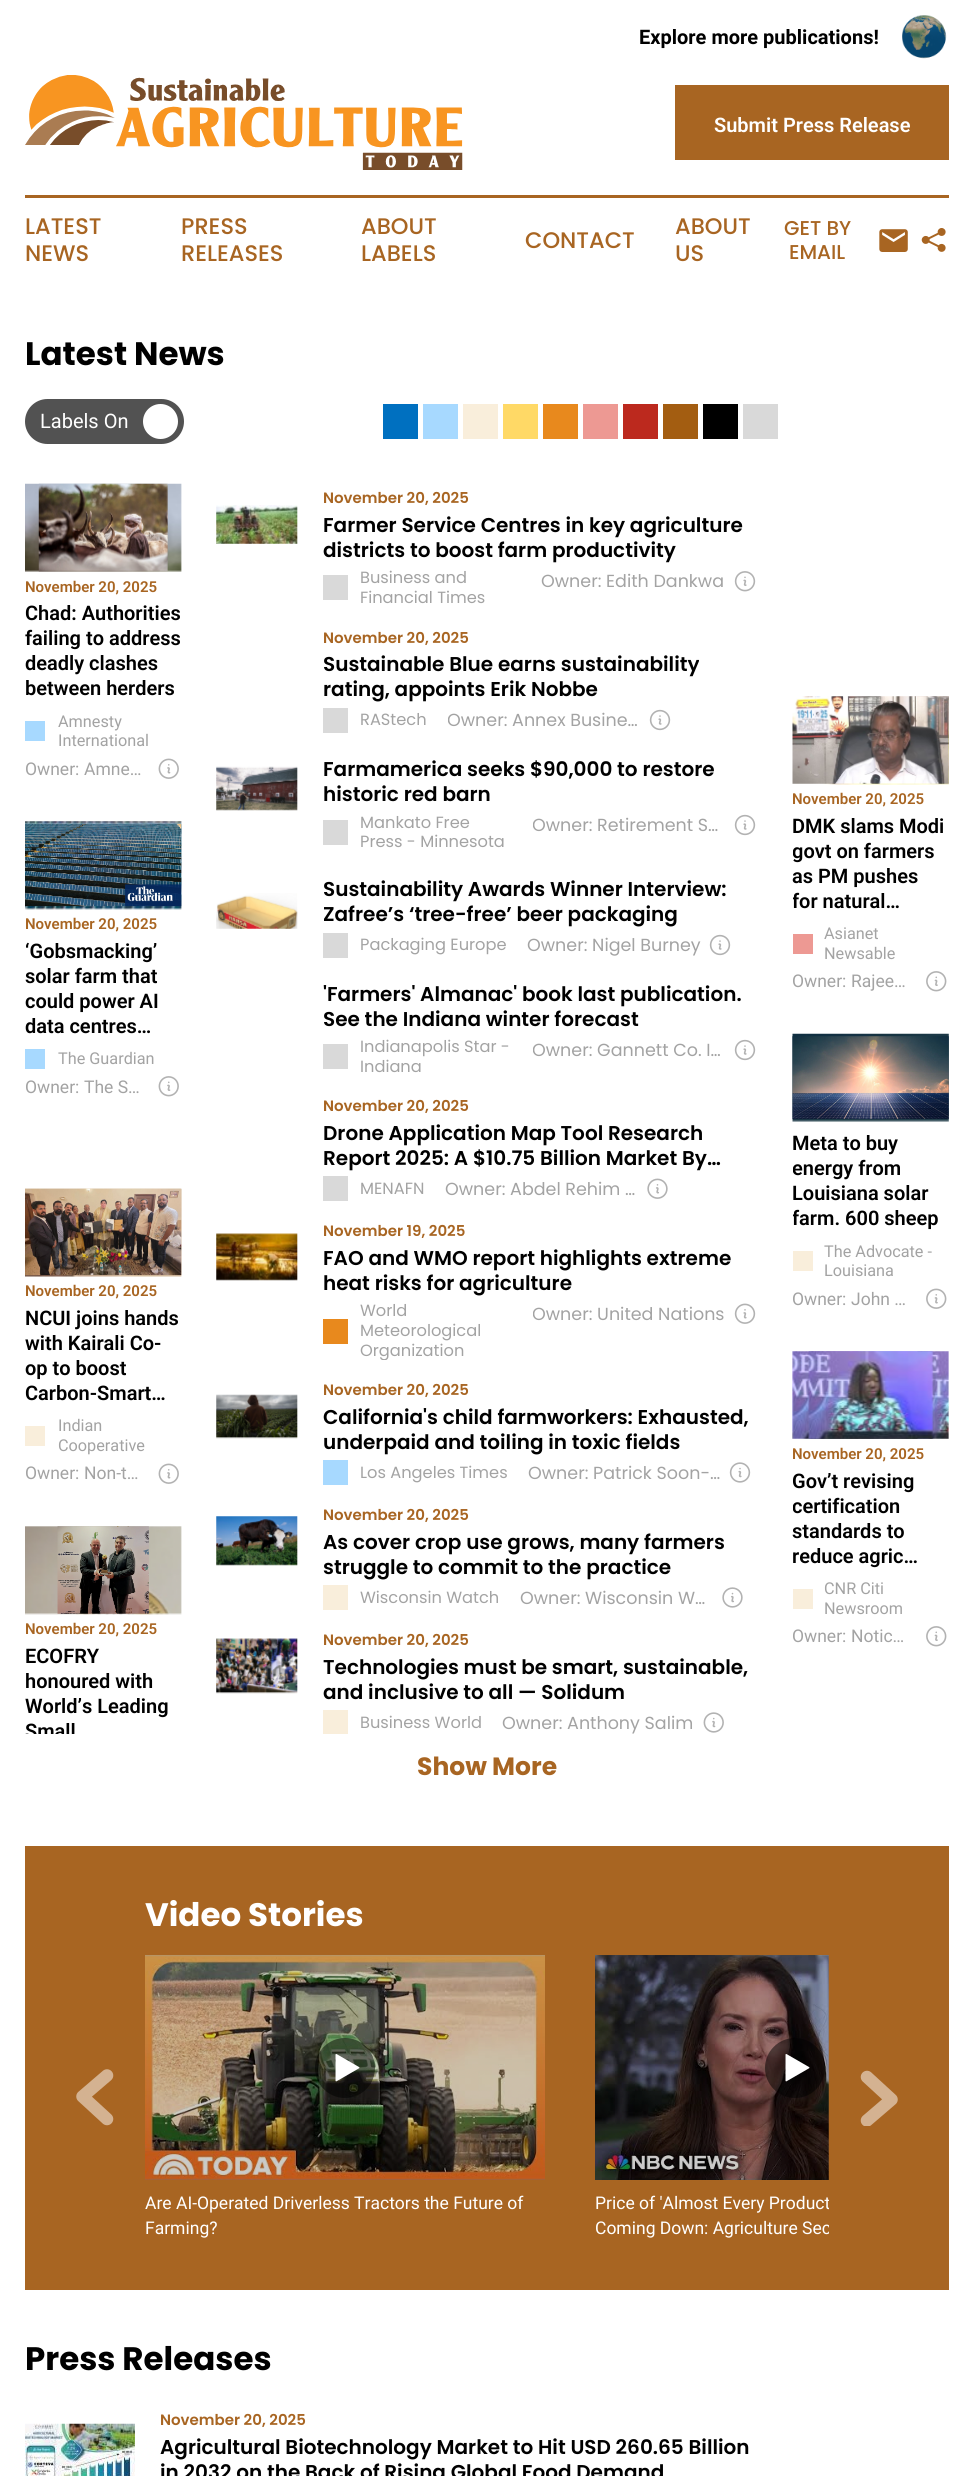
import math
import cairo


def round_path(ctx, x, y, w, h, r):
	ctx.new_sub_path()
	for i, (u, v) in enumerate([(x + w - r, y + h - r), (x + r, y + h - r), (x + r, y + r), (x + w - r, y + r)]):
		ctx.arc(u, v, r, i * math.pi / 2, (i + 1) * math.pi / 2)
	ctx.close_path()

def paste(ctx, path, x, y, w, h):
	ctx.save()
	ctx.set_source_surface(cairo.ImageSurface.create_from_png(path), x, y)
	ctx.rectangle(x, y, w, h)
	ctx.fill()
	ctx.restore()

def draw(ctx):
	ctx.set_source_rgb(1, 1, 1)
	ctx.paint()
	ctx.select_font_face('Roboto', cairo.FONT_SLANT_NORMAL, cairo.FONT_WEIGHT_BOLD)
	ctx.set_font_size(20)
	ctx.set_source_rgb(0, 0, 0)
	ctx.move_to(639, 44)
	ctx.show_text('Explore more publications!')
	paste(ctx, 'media/1.png', 902, 15, 45, 44)
	paste(ctx, 'media/2.png', 25, 75, 438, 95)
	ctx.set_source_rgb(0.659, 0.396, 0.133)
	ctx.rectangle(675, 85, 274, 75)
	ctx.fill()
	ctx.select_font_face('Roboto SemiBold')
	ctx.set_source_rgb(1, 1, 1)
	ctx.move_to(714, 132)
	ctx.show_text('Submit Press Release')
	ctx.set_source_rgb(0.659, 0.396, 0.133)
	ctx.rectangle(25, 195, 924, 3)
	ctx.fill()
	ctx.select_font_face('Poppins Medium')
	ctx.set_font_size(22.5)
	for x, y, s in [
		(25, 234, 'LATEST'),
		(25, 261, 'NEWS'),
		(181, 234, 'PRESS'),
		(181, 261, 'RELEASES'),
		(361, 234, 'ABOUT'),
		(361, 261, 'LABELS'),
		(525, 248, 'CONTACT'),
		(675, 234, 'ABOUT'),
		(675, 261, 'US'),
	]:
		ctx.move_to(x, y)
		ctx.show_text(s)
	ctx.set_font_size(20)
	ctx.move_to(784, 235)
	ctx.show_text('GET BY')
	paste(ctx, 'media/3.png', 879, 229, 29, 23)
	ctx.move_to(789, 259)
	ctx.show_text('EMAIL')
	paste(ctx, 'media/4.png', 921, 228, 25, 24)
	ctx.select_font_face('Poppins', cairo.FONT_SLANT_NORMAL, cairo.FONT_WEIGHT_BOLD)
	ctx.set_font_size(32.5)
	ctx.set_source_rgb(0, 0, 0)
	ctx.move_to(25, 365)
	ctx.show_text('Latest News')
	ctx.set_source_rgb(0.322, 0.322, 0.322)
	round_path(ctx, 25, 399, 159, 45, 22.5)
	ctx.fill()
	ctx.select_font_face('Roboto')
	ctx.set_font_size(20)
	ctx.set_source_rgb(1, 1, 1)
	ctx.move_to(40, 428)
	ctx.show_text('Labels On')
	ctx.new_path()
	ctx.arc(160.5, 421.5, 17.5, 0, 2 * math.pi)
	ctx.fill()
	ctx.set_source_rgb(0, 0.439, 0.753)
	ctx.rectangle(383, 404, 35, 35)
	ctx.fill()
	ctx.set_source_rgb(0.655, 0.851, 1)
	ctx.rectangle(423, 404, 35, 35)
	ctx.fill()
	ctx.set_source_rgb(0.976, 0.933, 0.859)
	ctx.rectangle(463, 404, 35, 35)
	ctx.fill()
	ctx.set_source_rgb(1, 0.851, 0.4)
	ctx.rectangle(503, 404, 35, 35)
	ctx.fill()
	ctx.set_source_rgb(0.91, 0.537, 0.114)
	ctx.rectangle(543, 404, 35, 35)
	ctx.fill()
	ctx.set_source_rgb(0.929, 0.6, 0.576)
	ctx.rectangle(583, 404, 35, 35)
	ctx.fill()
	ctx.set_source_rgb(0.737, 0.161, 0.118)
	ctx.rectangle(623, 404, 35, 35)
	ctx.fill()
	ctx.set_source_rgb(0.639, 0.365, 0.067)
	ctx.rectangle(663, 404, 35, 35)
	ctx.fill()
	ctx.set_source_rgb(0, 0, 0)
	ctx.rectangle(703, 404, 35, 35)
	ctx.fill()
	ctx.set_source_rgb(0.851, 0.851, 0.851)
	ctx.rectangle(743, 404, 35, 35)
	ctx.fill()
	paste(ctx, 'media/5.png', 25, 483, 157, 89)
	paste(ctx, 'media/6.png', 38, 483, 130, 89)
	ctx.select_font_face('Roboto SemiBold')
	ctx.set_font_size(15)
	ctx.set_source_rgb(0.659, 0.396, 0.133)
	ctx.move_to(25, 592)
	ctx.show_text('November 20, 2025')
	ctx.set_font_size(20)
	ctx.set_source_rgb(0, 0, 0)
	for x, y, s in [
		(25, 620, 'Chad: Authorities'),
		(25, 645, 'failing to address'),
		(25, 670, 'deadly clashes'),
		(25, 695, 'between herders'),
	]:
		ctx.move_to(x, y)
		ctx.show_text(s)
	ctx.set_source_rgb(0.655, 0.851, 1)
	ctx.rectangle(25, 721, 20, 20)
	ctx.fill()
	ctx.select_font_face('Roboto')
	ctx.set_font_size(16.25)
	ctx.set_source_rgb(0.639, 0.639, 0.639)
	ctx.move_to(58, 727)
	ctx.show_text('Amnesty')
	ctx.move_to(58, 746)
	ctx.show_text('International')
	ctx.set_font_size(17.5)
	ctx.move_to(25, 775)
	ctx.show_text('Owner:')
	ctx.move_to(84, 775)
	ctx.show_text('Amne…')
	paste(ctx, 'media/7.png', 158, 758, 21, 21)
	paste(ctx, 'media/8.png', 25, 821, 157, 89)
	paste(ctx, 'media/9.png', 25, 823, 157, 84)
	ctx.select_font_face('Roboto SemiBold')
	ctx.set_font_size(15)
	ctx.set_source_rgb(0.659, 0.396, 0.133)
	ctx.move_to(25, 929)
	ctx.show_text('November 20, 2025')
	ctx.set_font_size(20)
	ctx.set_source_rgb(0, 0, 0)
	for x, y, s in [
		(25, 958, '‘Gobsmacking’'),
		(25, 983, 'solar farm that'),
		(25, 1008, 'could power AI'),
		(25, 1033, 'data centres…'),
	]:
		ctx.move_to(x, y)
		ctx.show_text(s)
	ctx.set_source_rgb(0.655, 0.851, 1)
	ctx.rectangle(25, 1049, 20, 20)
	ctx.fill()
	ctx.select_font_face('Roboto')
	ctx.set_font_size(16.25)
	ctx.set_source_rgb(0.639, 0.639, 0.639)
	ctx.move_to(58, 1064)
	ctx.show_text('The Guardian')
	ctx.set_font_size(17.5)
	ctx.move_to(25, 1093)
	ctx.show_text('Owner:')
	ctx.move_to(84, 1093)
	ctx.show_text('The S…')
	paste(ctx, 'media/10.png', 158, 1076, 21, 21)
	paste(ctx, 'media/11.png', 25, 1188, 157, 89)
	paste(ctx, 'media/12.png', 25, 1188, 157, 88)
	ctx.select_font_face('Roboto SemiBold')
	ctx.set_font_size(15)
	ctx.set_source_rgb(0.659, 0.396, 0.133)
	ctx.move_to(25, 1296)
	ctx.show_text('November 20, 2025')
	ctx.set_font_size(20)
	ctx.set_source_rgb(0, 0, 0)
	for x, y, s in [
		(25, 1325, 'NCUI joins hands'),
		(25, 1350, 'with Kairali Co-'),
		(25, 1375, 'op to boost'),
		(25, 1400, 'Carbon-Smart…'),
	]:
		ctx.move_to(x, y)
		ctx.show_text(s)
	ctx.set_source_rgb(0.976, 0.933, 0.859)
	ctx.rectangle(25, 1426, 20, 20)
	ctx.fill()
	ctx.select_font_face('Roboto')
	ctx.set_font_size(16.25)
	ctx.set_source_rgb(0.639, 0.639, 0.639)
	ctx.move_to(58, 1431)
	ctx.show_text('Indian')
	ctx.move_to(58, 1451)
	ctx.show_text('Cooperative')
	ctx.set_font_size(17.5)
	ctx.move_to(25, 1479)
	ctx.show_text('Owner:')
	ctx.move_to(84, 1479)
	ctx.show_text('Non-t…')
	paste(ctx, 'media/7.png', 158, 1463, 21, 21)
	paste(ctx, 'media/13.png', 25, 1526, 157, 89)
	paste(ctx, 'media/14.png', 57, 1526, 92, 88)
	ctx.select_font_face('Roboto SemiBold')
	ctx.set_font_size(15)
	ctx.set_source_rgb(0.659, 0.396, 0.133)
	ctx.move_to(25, 1634)
	ctx.show_text('November 20, 2025')
	ctx.set_font_size(20)
	ctx.set_source_rgb(0, 0, 0)
	for x, y, s in [
		(25, 1663, 'ECOFRY'),
		(25, 1688, 'honoured with'),
		(25, 1713, 'World’s Leading'),
	]:
		ctx.move_to(x, y)
		ctx.show_text(s)
	ctx.save()
	ctx.rectangle(25, 1644, 156, 90)
	ctx.clip()
	ctx.move_to(25, 1738)
	ctx.show_text('Small')
	ctx.restore()
	paste(ctx, 'media/15.png', 216, 505, 82, 39)
	ctx.select_font_face('Poppins SemiBold')
	ctx.set_font_size(15)
	ctx.set_source_rgb(0.659, 0.396, 0.133)
	ctx.move_to(323, 503)
	ctx.show_text('November 20, 2025')
	ctx.set_font_size(20)
	ctx.set_source_rgb(0, 0, 0)
	ctx.move_to(323, 532)
	ctx.show_text('Farmer Service Centres in key agriculture')
	ctx.move_to(323, 557)
	ctx.show_text('districts to boost farm productivity')
	ctx.set_source_rgb(0.851, 0.851, 0.851)
	ctx.rectangle(323, 575, 25, 25)
	ctx.fill()
	ctx.select_font_face('Poppins')
	ctx.set_font_size(16.25)
	ctx.set_source_rgb(0.639, 0.639, 0.639)
	ctx.move_to(360, 583)
	ctx.show_text('Business and')
	ctx.move_to(360, 603)
	ctx.show_text('Financial Times')
	ctx.set_font_size(17.5)
	ctx.move_to(541, 587)
	ctx.show_text('Owner: Edith Dankwa')
	paste(ctx, 'media/16.png', 734, 571, 22, 21)
	ctx.select_font_face('Poppins SemiBold')
	ctx.set_font_size(15)
	ctx.set_source_rgb(0.659, 0.396, 0.133)
	ctx.move_to(323, 643)
	ctx.show_text('November 20, 2025')
	ctx.set_font_size(20)
	ctx.set_source_rgb(0, 0, 0)
	ctx.move_to(323, 671)
	ctx.show_text('Sustainable Blue earns sustainability')
	ctx.move_to(323, 696)
	ctx.show_text('rating, appoints Erik Nobbe')
	ctx.set_source_rgb(0.851, 0.851, 0.851)
	ctx.rectangle(323, 708, 25, 25)
	ctx.fill()
	ctx.select_font_face('Poppins')
	ctx.set_font_size(16.25)
	ctx.set_source_rgb(0.639, 0.639, 0.639)
	ctx.move_to(360, 725)
	ctx.show_text('RAStech')
	ctx.save()
	ctx.rectangle(448, 708, 192, 25)
	ctx.clip()
	ctx.set_font_size(17.5)
	ctx.move_to(447, 726)
	ctx.show_text('Owner: Annex Busine…')
	ctx.restore()
	paste(ctx, 'media/17.png', 649, 709, 22, 22)
	paste(ctx, 'media/18.png', 216, 766, 82, 45)
	ctx.select_font_face('Poppins SemiBold')
	ctx.set_font_size(20)
	ctx.set_source_rgb(0, 0, 0)
	ctx.move_to(323, 776)
	ctx.show_text('Farmamerica seeks $90,000 to restore')
	ctx.move_to(323, 801)
	ctx.show_text('historic red barn')
	ctx.set_source_rgb(0.851, 0.851, 0.851)
	ctx.rectangle(323, 820, 25, 25)
	ctx.fill()
	ctx.select_font_face('Poppins')
	ctx.set_font_size(16.25)
	ctx.set_source_rgb(0.639, 0.639, 0.639)
	ctx.move_to(360, 828)
	ctx.show_text('Mankato Free')
	ctx.move_to(360, 847)
	ctx.show_text('Press - Minnesota')
	ctx.save()
	ctx.rectangle(533, 813, 192, 25)
	ctx.clip()
	ctx.set_font_size(17.5)
	ctx.move_to(532, 831)
	ctx.show_text('Owner: Retirement S…')
	ctx.restore()
	paste(ctx, 'media/17.png', 734, 814, 22, 22)
	paste(ctx, 'media/19.png', 216, 893, 82, 36)
	ctx.select_font_face('Poppins SemiBold')
	ctx.set_font_size(20)
	ctx.set_source_rgb(0, 0, 0)
	ctx.move_to(323, 896)
	ctx.show_text('Sustainability Awards Winner Interview:')
	ctx.move_to(323, 921)
	ctx.show_text('Zafree’s ‘tree-free’ beer packaging')
	ctx.set_source_rgb(0.851, 0.851, 0.851)
	ctx.rectangle(323, 933, 25, 25)
	ctx.fill()
	ctx.select_font_face('Poppins')
	ctx.set_font_size(16.25)
	ctx.set_source_rgb(0.639, 0.639, 0.639)
	ctx.move_to(360, 950)
	ctx.show_text('Packaging Europe')
	ctx.set_font_size(17.5)
	ctx.move_to(527, 951)
	ctx.show_text('Owner: Nigel Burney')
	paste(ctx, 'media/17.png', 709, 934, 22, 22)
	ctx.select_font_face('Poppins SemiBold')
	ctx.set_font_size(20)
	ctx.set_source_rgb(0, 0, 0)
	ctx.move_to(323, 1001)
	ctx.show_text('\'Farmers\' Almanac\' book last publication.')
	ctx.move_to(323, 1026)
	ctx.show_text('See the Indiana winter forecast')
	ctx.set_source_rgb(0.851, 0.851, 0.851)
	ctx.rectangle(323, 1044, 25, 25)
	ctx.fill()
	ctx.select_font_face('Poppins')
	ctx.set_font_size(16.25)
	ctx.set_source_rgb(0.639, 0.639, 0.639)
	ctx.move_to(360, 1052)
	ctx.show_text('Indianapolis Star -')
	ctx.move_to(360, 1072)
	ctx.show_text('Indiana')
	ctx.save()
	ctx.rectangle(533, 1038, 192, 25)
	ctx.clip()
	ctx.set_font_size(17.5)
	ctx.move_to(532, 1056)
	ctx.show_text('Owner: Gannett Co. I…')
	ctx.restore()
	paste(ctx, 'media/17.png', 734, 1039, 22, 22)
	ctx.select_font_face('Poppins SemiBold')
	ctx.set_font_size(15)
	ctx.set_source_rgb(0.659, 0.396, 0.133)
	ctx.move_to(323, 1111)
	ctx.show_text('November 20, 2025')
	ctx.set_font_size(20)
	ctx.set_source_rgb(0, 0, 0)
	ctx.move_to(323, 1140)
	ctx.show_text('Drone Application Map Tool Research')
	ctx.move_to(323, 1165)
	ctx.show_text('Report 2025: A $10.75 Billion Market By…')
	ctx.set_source_rgb(0.851, 0.851, 0.851)
	ctx.rectangle(323, 1176, 25, 25)
	ctx.fill()
	ctx.select_font_face('Poppins')
	ctx.set_font_size(16.25)
	ctx.set_source_rgb(0.639, 0.639, 0.639)
	ctx.move_to(360, 1194)
	ctx.show_text('MENAFN')
	ctx.set_font_size(17.5)
	ctx.move_to(445, 1195)
	ctx.show_text('Owner: Abdel Rehim …')
	paste(ctx, 'media/20.png', 647, 1178, 21, 21)
	paste(ctx, 'media/21.png', 216, 1233, 82, 48)
	ctx.select_font_face('Poppins SemiBold')
	ctx.set_font_size(15)
	ctx.set_source_rgb(0.659, 0.396, 0.133)
	ctx.move_to(323, 1236)
	ctx.show_text('November 19, 2025')
	ctx.set_font_size(20)
	ctx.set_source_rgb(0, 0, 0)
	ctx.move_to(323, 1265)
	ctx.show_text('FAO and WMO report highlights extreme')
	ctx.move_to(323, 1290)
	ctx.show_text('heat risks for agriculture')
	ctx.select_font_face('Poppins')
	ctx.set_font_size(16.25)
	ctx.set_source_rgb(0.639, 0.639, 0.639)
	ctx.move_to(360, 1316)
	ctx.show_text('World')
	ctx.set_source_rgb(0.91, 0.537, 0.114)
	ctx.rectangle(323, 1319, 25, 25)
	ctx.fill()
	ctx.set_source_rgb(0.639, 0.639, 0.639)
	ctx.move_to(360, 1336)
	ctx.show_text('Meteorological')
	ctx.save()
	ctx.rectangle(323, 1301, 435, 59)
	ctx.clip()
	ctx.move_to(360, 1356)
	ctx.show_text('Organization')
	ctx.restore()
	ctx.save()
	ctx.rectangle(533, 1301, 192, 25)
	ctx.clip()
	ctx.set_font_size(17.5)
	ctx.move_to(532, 1320)
	ctx.show_text('Owner: United Nations')
	ctx.restore()
	paste(ctx, 'media/22.png', 734, 1303, 22, 21)
	paste(ctx, 'media/23.png', 216, 1394, 82, 45)
	ctx.select_font_face('Poppins SemiBold')
	ctx.set_font_size(15)
	ctx.set_source_rgb(0.659, 0.396, 0.133)
	ctx.move_to(323, 1395)
	ctx.show_text('November 20, 2025')
	ctx.set_font_size(20)
	ctx.set_source_rgb(0, 0, 0)
	ctx.move_to(323, 1424)
	ctx.show_text('California\'s child farmworkers: Exhausted,')
	ctx.move_to(323, 1449)
	ctx.show_text('underpaid and toiling in toxic fields')
	ctx.set_source_rgb(0.655, 0.851, 1)
	ctx.rectangle(323, 1460, 25, 25)
	ctx.fill()
	ctx.select_font_face('Poppins')
	ctx.set_font_size(16.25)
	ctx.set_source_rgb(0.639, 0.639, 0.639)
	ctx.move_to(360, 1478)
	ctx.show_text('Los Angeles Times')
	ctx.set_font_size(17.5)
	ctx.move_to(528, 1479)
	ctx.show_text('Owner: Patrick Soon-…')
	paste(ctx, 'media/24.png', 729, 1462, 22, 21)
	paste(ctx, 'media/25.png', 216, 1516, 82, 50)
	ctx.select_font_face('Poppins SemiBold')
	ctx.set_font_size(15)
	ctx.set_source_rgb(0.659, 0.396, 0.133)
	ctx.move_to(323, 1520)
	ctx.show_text('November 20, 2025')
	ctx.set_font_size(20)
	ctx.set_source_rgb(0, 0, 0)
	ctx.move_to(323, 1549)
	ctx.show_text('As cover crop use grows, many farmers')
	ctx.move_to(323, 1574)
	ctx.show_text('struggle to commit to the practice')
	ctx.set_source_rgb(0.976, 0.933, 0.859)
	ctx.rectangle(323, 1585, 25, 25)
	ctx.fill()
	ctx.select_font_face('Poppins')
	ctx.set_font_size(16.25)
	ctx.set_source_rgb(0.639, 0.639, 0.639)
	ctx.move_to(360, 1603)
	ctx.show_text('Wisconsin Watch')
	ctx.set_font_size(17.5)
	ctx.move_to(520, 1604)
	ctx.show_text('Owner: Wisconsin W…')
	paste(ctx, 'media/26.png', 722, 1587, 21, 21)
	paste(ctx, 'media/27.png', 216, 1638, 82, 56)
	ctx.select_font_face('Poppins SemiBold')
	ctx.set_font_size(15)
	ctx.set_source_rgb(0.659, 0.396, 0.133)
	ctx.move_to(323, 1645)
	ctx.show_text('November 20, 2025')
	ctx.set_font_size(20)
	ctx.set_source_rgb(0, 0, 0)
	ctx.move_to(323, 1674)
	ctx.show_text('Technologies must be smart, sustainable,')
	ctx.move_to(323, 1699)
	ctx.show_text('and inclusive to all — Solidum')
	ctx.set_source_rgb(0.976, 0.933, 0.859)
	ctx.rectangle(323, 1710, 25, 24)
	ctx.fill()
	ctx.select_font_face('Poppins')
	ctx.set_font_size(16.25)
	ctx.set_source_rgb(0.639, 0.639, 0.639)
	ctx.move_to(360, 1728)
	ctx.show_text('Business World')
	ctx.set_font_size(17.5)
	ctx.move_to(502, 1729)
	ctx.show_text('Owner: Anthony Salim')
	paste(ctx, 'media/28.png', 703, 1712, 21, 21)
	paste(ctx, 'media/29.png', 822, 696, 127, 89)
	paste(ctx, 'media/30.png', 792, 696, 157, 88)
	ctx.select_font_face('Roboto SemiBold')
	ctx.set_font_size(15)
	ctx.set_source_rgb(0.659, 0.396, 0.133)
	ctx.move_to(792, 804)
	ctx.show_text('November 20, 2025')
	ctx.set_font_size(20)
	ctx.set_source_rgb(0, 0, 0)
	ctx.move_to(792, 833)
	ctx.show_text('DMK slams Modi')
	ctx.save()
	ctx.rectangle(793, 814, 156, 100)
	ctx.clip()
	ctx.move_to(792, 858)
	ctx.show_text('govt on farmers')
	ctx.restore()
	ctx.move_to(792, 883)
	ctx.show_text('as PM pushes')
	ctx.save()
	ctx.rectangle(793, 814, 156, 100)
	ctx.clip()
	ctx.move_to(792, 908)
	ctx.show_text('for natural…')
	ctx.restore()
	ctx.set_source_rgb(0.929, 0.6, 0.576)
	ctx.rectangle(793, 934, 20, 20)
	ctx.fill()
	ctx.select_font_face('Roboto')
	ctx.set_font_size(16.25)
	ctx.set_source_rgb(0.639, 0.639, 0.639)
	ctx.move_to(824, 939)
	ctx.show_text('Asianet')
	ctx.move_to(824, 959)
	ctx.show_text('Newsable')
	ctx.set_font_size(17.5)
	ctx.move_to(792, 987)
	ctx.show_text('Owner:')
	ctx.move_to(851, 987)
	ctx.show_text('Rajee…')
	paste(ctx, 'media/31.png', 926, 971, 21, 21)
	paste(ctx, 'media/32.png', 792, 1033, 157, 89)
	paste(ctx, 'media/33.png', 792, 1036, 157, 83)
	ctx.select_font_face('Roboto SemiBold')
	ctx.set_font_size(20)
	ctx.set_source_rgb(0, 0, 0)
	ctx.move_to(792, 1150)
	ctx.show_text('Meta to buy')
	ctx.save()
	ctx.rectangle(793, 1131, 156, 100)
	ctx.clip()
	ctx.move_to(792, 1175)
	ctx.show_text('energy from')
	ctx.restore()
	ctx.move_to(792, 1200)
	ctx.show_text('Louisiana solar')
	ctx.save()
	ctx.rectangle(793, 1131, 156, 100)
	ctx.clip()
	ctx.move_to(792, 1225)
	ctx.show_text('farm. 600 sheep')
	ctx.restore()
	ctx.set_source_rgb(0.976, 0.933, 0.859)
	ctx.rectangle(793, 1251, 20, 20)
	ctx.fill()
	ctx.select_font_face('Roboto')
	ctx.set_font_size(16.25)
	ctx.set_source_rgb(0.639, 0.639, 0.639)
	ctx.move_to(824, 1257)
	ctx.show_text('The Advocate -')
	ctx.move_to(824, 1276)
	ctx.show_text('Louisiana')
	ctx.set_font_size(17.5)
	ctx.move_to(792, 1305)
	ctx.show_text('Owner:')
	ctx.move_to(851, 1305)
	ctx.show_text('John …')
	paste(ctx, 'media/34.png', 926, 1288, 21, 21)
	paste(ctx, 'media/35.png', 792, 1351, 157, 88)
	paste(ctx, 'media/36.png', 808, 1351, 126, 88)
	ctx.select_font_face('Roboto SemiBold')
	ctx.set_font_size(15)
	ctx.set_source_rgb(0.659, 0.396, 0.133)
	ctx.move_to(792, 1459)
	ctx.show_text('November 20, 2025')
	ctx.set_font_size(20)
	ctx.set_source_rgb(0, 0, 0)
	ctx.move_to(792, 1488)
	ctx.show_text('Gov’t revising')
	ctx.save()
	ctx.rectangle(793, 1469, 156, 100)
	ctx.clip()
	ctx.move_to(792, 1513)
	ctx.show_text('certification')
	ctx.restore()
	ctx.move_to(792, 1538)
	ctx.show_text('standards to')
	ctx.move_to(792, 1563)
	ctx.show_text('reduce agric…')
	ctx.set_source_rgb(0.976, 0.933, 0.859)
	ctx.rectangle(793, 1589, 20, 20)
	ctx.fill()
	ctx.select_font_face('Roboto')
	ctx.set_font_size(16.25)
	ctx.set_source_rgb(0.639, 0.639, 0.639)
	ctx.move_to(824, 1594)
	ctx.show_text('CNR Citi')
	ctx.move_to(824, 1614)
	ctx.show_text('Newsroom')
	ctx.set_font_size(17.5)
	ctx.move_to(792, 1642)
	ctx.show_text('Owner:')
	ctx.move_to(851, 1642)
	ctx.show_text('Notic…')
	paste(ctx, 'media/31.png', 926, 1626, 21, 21)
	ctx.select_font_face('Poppins', cairo.FONT_SLANT_NORMAL, cairo.FONT_WEIGHT_BOLD)
	ctx.set_font_size(25)
	ctx.set_source_rgb(0.659, 0.396, 0.133)
	ctx.move_to(417, 1775)
	ctx.show_text('Show More')
	ctx.rectangle(25, 1846, 924, 444)
	ctx.fill()
	ctx.set_font_size(32.5)
	ctx.set_source_rgb(1, 1, 1)
	ctx.move_to(145, 1926)
	ctx.show_text('Video Stories')
	ctx.new_path()
	ctx.move_to(107, 2075.5)
	ctx.line_to(82.5, 2096.5)
	ctx.line_to(107, 2119)
	ctx.set_source_rgb(0.831, 0.698, 0.569)
	ctx.set_line_width(12.5)
	ctx.set_line_cap(cairo.LINE_CAP_ROUND)
	ctx.set_line_join(cairo.LINE_JOIN_ROUND)
	ctx.stroke()
	ctx.save()
	ctx.rectangle(860, 2069, 39, 57)
	ctx.clip()
	ctx.new_path()
	ctx.move_to(867, 2120.5)
	ctx.line_to(891.5, 2099.5)
	ctx.line_to(867, 2077)
	ctx.stroke()
	ctx.restore()
	paste(ctx, 'media/37.png', 145, 1955, 400, 225)
	ctx.set_source_rgba(0, 0, 0, 0.5)
	ctx.arc(345, 2068, 30, 0, 2 * math.pi)
	ctx.fill()
	paste(ctx, 'media/38.png', 335, 2054, 25, 28)
	ctx.select_font_face('Roboto')
	ctx.set_font_size(17.5)
	ctx.set_source_rgb(1, 1, 1)
	ctx.move_to(145, 2209)
	ctx.show_text('Are AI-Operated Driverless Tractors the Future of')
	ctx.move_to(145, 2234)
	ctx.show_text('Farming?')
	paste(ctx, 'media/39.png', 595, 1955, 234, 225)
	ctx.set_source_rgba(0, 0, 0, 0.5)
	ctx.arc(795, 2068, 30, 0, 2 * math.pi)
	ctx.fill()
	paste(ctx, 'media/40.png', 785, 2054, 25, 28)
	ctx.save()
	ctx.rectangle(145, 1955, 684, 285)
	ctx.clip()
	ctx.set_source_rgb(1, 1, 1)
	ctx.move_to(595, 2209)
	ctx.show_text('Price of \'Almost Every Product')
	ctx.move_to(595, 2234)
	ctx.show_text('Coming Down: Agriculture Sec')
	ctx.restore()
	ctx.select_font_face('Poppins', cairo.FONT_SLANT_NORMAL, cairo.FONT_WEIGHT_BOLD)
	ctx.set_font_size(32.5)
	ctx.set_source_rgb(0, 0, 0)
	ctx.move_to(25, 2370)
	ctx.show_text('Press Releases')
	paste(ctx, 'media/41.png', 25, 2423, 110, 53)
	ctx.select_font_face('Poppins SemiBold')
	ctx.set_font_size(15)
	ctx.set_source_rgb(0.659, 0.396, 0.133)
	ctx.move_to(160, 2425)
	ctx.show_text('November 20, 2025')
	ctx.set_font_size(20)
	ctx.set_source_rgb(0, 0, 0)
	ctx.move_to(160, 2454)
	ctx.show_text('Agricultural Biotechnology Market to Hit USD 260.65 Billion')
	ctx.move_to(160, 2479)
	ctx.show_text('in 2032 on the Back of Rising Global Food Demand')


surface = cairo.ImageSurface(cairo.FORMAT_RGB24, 973, 2476)
ctx = cairo.Context(surface)
options = cairo.FontOptions()
options.set_hint_metrics(cairo.HINT_METRICS_OFF)
options.set_hint_style(cairo.HINT_STYLE_NONE)
ctx.set_font_options(options)
ctx.set_miter_limit(4)
draw(ctx)
surface.write_to_png('image.png')
